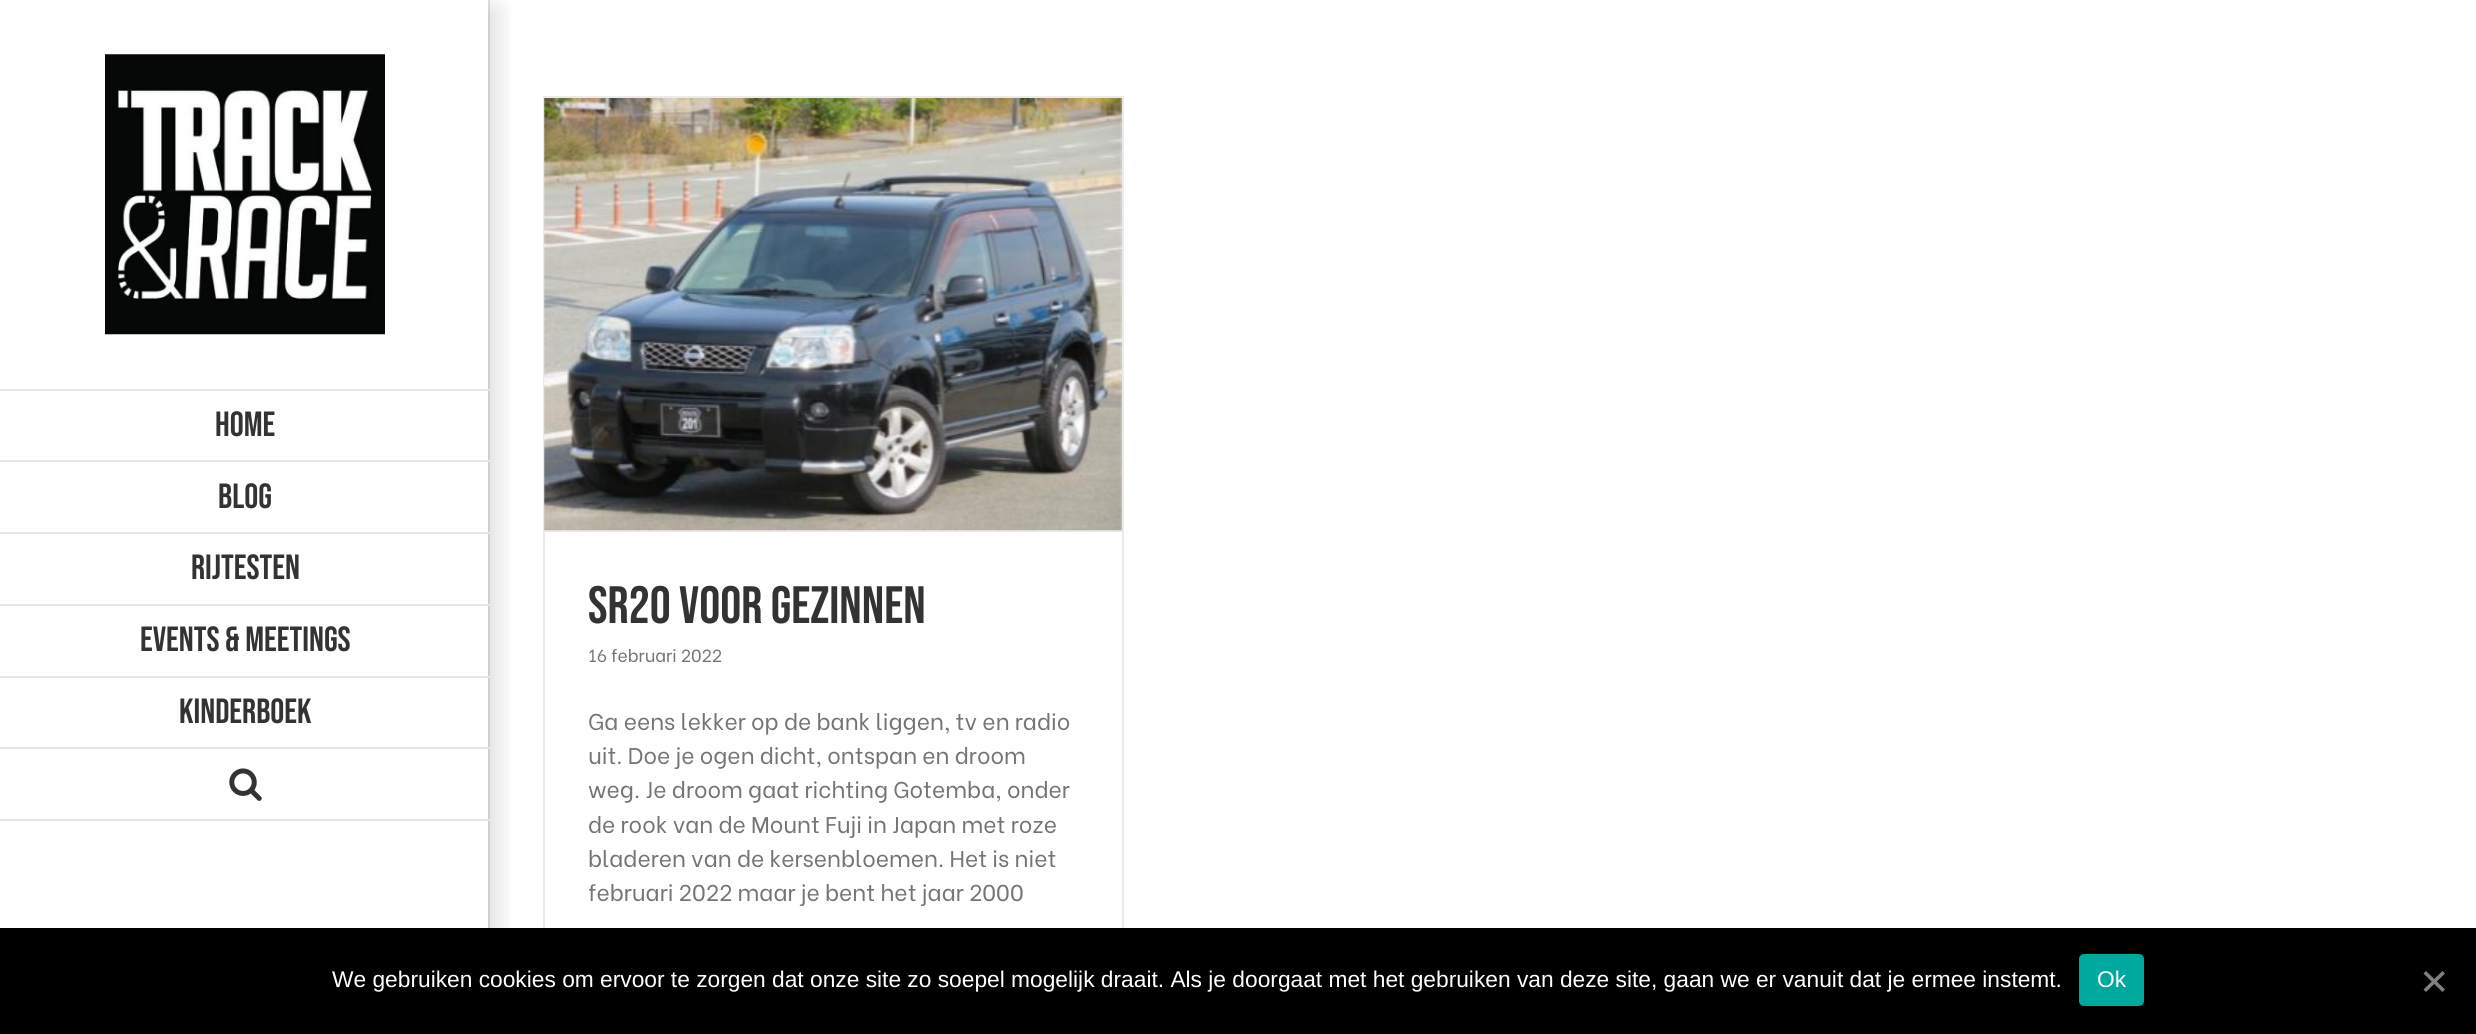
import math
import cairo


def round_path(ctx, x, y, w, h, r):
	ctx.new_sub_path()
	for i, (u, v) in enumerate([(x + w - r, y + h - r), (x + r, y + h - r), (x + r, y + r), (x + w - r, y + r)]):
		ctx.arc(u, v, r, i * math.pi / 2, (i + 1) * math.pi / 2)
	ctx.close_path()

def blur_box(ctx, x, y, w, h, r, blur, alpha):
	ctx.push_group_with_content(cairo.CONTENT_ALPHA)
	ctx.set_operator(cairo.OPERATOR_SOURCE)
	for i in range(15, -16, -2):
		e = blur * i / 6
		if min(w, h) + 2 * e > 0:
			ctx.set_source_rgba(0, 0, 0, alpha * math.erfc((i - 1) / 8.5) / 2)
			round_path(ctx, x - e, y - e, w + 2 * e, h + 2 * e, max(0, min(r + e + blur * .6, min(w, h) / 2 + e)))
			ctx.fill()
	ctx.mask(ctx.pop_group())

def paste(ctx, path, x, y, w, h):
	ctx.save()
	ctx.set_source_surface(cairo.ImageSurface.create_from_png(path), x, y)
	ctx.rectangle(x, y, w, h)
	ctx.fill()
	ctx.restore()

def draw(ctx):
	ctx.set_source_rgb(1, 1, 1)
	ctx.paint()
	paste(ctx, 'media/1.png', 105, 54, 280, 281)
	ctx.set_source_rgb(0.898, 0.898, 0.898)
	ctx.rectangle(488, 0, 2, 928)
	ctx.fill()
	ctx.save()
	ctx.rectangle(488, 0, 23, 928)
	ctx.clip()
	ctx.set_source_rgb(0, 0, 0)
	blur_box(ctx, 471, 9, 26, 1017, 0, 13, 0.14)
	ctx.restore()
	ctx.rectangle(0, 389, 490, 2)
	ctx.fill()
	ctx.rectangle(0, 460, 490, 2)
	ctx.fill()
	ctx.select_font_face('Bebas Neue')
	ctx.set_font_size(35)
	ctx.set_source_rgb(0.2, 0.2, 0.2)
	ctx.move_to(215, 436)
	ctx.show_text('Home')
	ctx.set_source_rgb(0.898, 0.898, 0.898)
	ctx.rectangle(0, 532, 490, 2)
	ctx.fill()
	ctx.set_source_rgb(0.2, 0.2, 0.2)
	ctx.move_to(218, 508)
	ctx.show_text('Blog')
	ctx.set_source_rgb(0.898, 0.898, 0.898)
	ctx.rectangle(0, 604, 490, 2)
	ctx.fill()
	ctx.set_source_rgb(0.2, 0.2, 0.2)
	ctx.move_to(191, 579)
	ctx.show_text('Rijtesten')
	ctx.set_source_rgb(0.898, 0.898, 0.898)
	ctx.rectangle(0, 676, 490, 2)
	ctx.fill()
	ctx.set_source_rgb(0.2, 0.2, 0.2)
	ctx.move_to(140, 651)
	ctx.show_text('Events & Meetings')
	ctx.set_source_rgb(0.898, 0.898, 0.898)
	ctx.rectangle(0, 747, 490, 2)
	ctx.fill()
	ctx.set_source_rgb(0.2, 0.2, 0.2)
	ctx.move_to(179, 723)
	ctx.show_text('Kinderboek')
	ctx.set_source_rgb(0.898, 0.898, 0.898)
	ctx.rectangle(0, 819, 490, 2)
	ctx.fill()
	paste(ctx, 'media/2.png', 229, 768, 33, 33)
	ctx.set_source_rgb(0.922, 0.918, 0.918)
	ctx.rectangle(543, 96, 581, 2)
	ctx.rectangle(1122, 96, 2, 832)
	ctx.rectangle(543, 96, 2, 832)
	ctx.rectangle(544, 530, 578, 2)
	ctx.fill()
	paste(ctx, 'media/3.png', 544, 98, 578, 433)
	ctx.set_font_size(52.5)
	ctx.set_source_rgb(0.2, 0.2, 0.2)
	ctx.move_to(588, 623)
	ctx.show_text('SR20 voor gezinnen')
	ctx.select_font_face('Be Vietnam')
	ctx.set_font_size(17.5)
	ctx.set_source_rgb(0.455, 0.455, 0.455)
	ctx.move_to(588, 662)
	ctx.show_text('16 februari 2022')
	ctx.set_font_size(22.75)
	for x, y, s in [
		(588, 730, 'Ga eens lekker op de bank liggen, tv en radio'),
		(588, 764, 'uit. Doe je ogen dicht, ontspan en droom'),
		(588, 798, 'weg. Je droom gaat richting Gotemba, onder'),
		(588, 833, 'de rook van de Mount Fuji in Japan met roze'),
		(588, 867, 'bladeren van de kersenbloemen. Het is niet'),
		(588, 901, 'februari 2022 maar je bent het jaar 2000'),
	]:
		ctx.move_to(x, y)
		ctx.show_text(s)
	ctx.set_source_rgb(0, 0, 0)
	ctx.rectangle(0, 928, 2476, 106)
	ctx.fill()
	ctx.select_font_face('Liberation Sans')
	ctx.set_source_rgb(1, 1, 1)
	ctx.move_to(332, 987)
	ctx.show_text('We gebruiken cookies om ervoor te zorgen dat onze site zo soepel mogelijk draait. Als je doorgaat met het gebruiken van deze site, gaan we er vanuit dat je ermee instemt.')
	ctx.set_source_rgb(0, 0.663, 0.616)
	round_path(ctx, 2079, 954, 65, 52, 5)
	ctx.fill()
	ctx.set_source_rgb(1, 1, 1)
	ctx.move_to(2097, 987)
	ctx.show_text('Ok')
	ctx.set_source_rgb(0.502, 0.502, 0.502)
	ctx.new_path()
	ctx.move_to(2442.5, 971)
	ctx.line_to(2445, 973.5)
	ctx.line_to(2426, 992)
	ctx.line_to(2423.5, 989.5)
	ctx.close_path()
	ctx.fill()
	ctx.new_path()
	ctx.move_to(2423.5, 973.5)
	ctx.line_to(2426, 971)
	ctx.line_to(2445, 989.5)
	ctx.line_to(2442.5, 992)
	ctx.close_path()
	ctx.fill()


surface = cairo.ImageSurface(cairo.FORMAT_RGB24, 2476, 1034)
ctx = cairo.Context(surface)
options = cairo.FontOptions()
options.set_hint_metrics(cairo.HINT_METRICS_OFF)
options.set_hint_style(cairo.HINT_STYLE_NONE)
ctx.set_font_options(options)
ctx.set_miter_limit(4)
draw(ctx)
surface.write_to_png('image.png')
